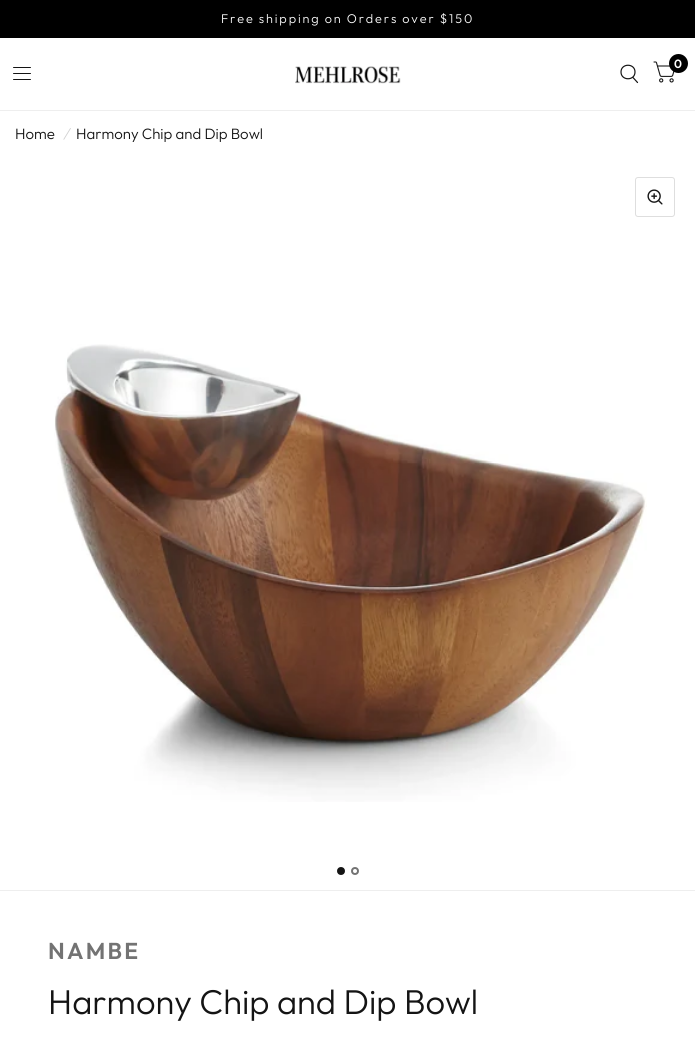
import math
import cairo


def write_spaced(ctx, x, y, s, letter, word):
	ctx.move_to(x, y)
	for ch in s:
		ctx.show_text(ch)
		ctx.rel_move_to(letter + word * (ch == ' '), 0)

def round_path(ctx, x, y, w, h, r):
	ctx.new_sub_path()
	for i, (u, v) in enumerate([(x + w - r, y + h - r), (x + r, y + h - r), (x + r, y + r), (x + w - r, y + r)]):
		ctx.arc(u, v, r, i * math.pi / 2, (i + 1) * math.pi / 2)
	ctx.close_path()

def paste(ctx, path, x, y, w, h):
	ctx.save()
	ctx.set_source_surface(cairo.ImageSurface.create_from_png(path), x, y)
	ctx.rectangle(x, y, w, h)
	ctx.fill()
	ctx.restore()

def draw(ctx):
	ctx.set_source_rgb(1, 1, 1)
	ctx.paint()
	ctx.set_source_rgb(0, 0, 0)
	ctx.rectangle(0, 0, 695, 38)
	ctx.fill()
	ctx.select_font_face('Outfit Light')
	ctx.set_font_size(12.65)
	ctx.set_source_rgb(1, 1, 1)
	write_spaced(ctx, 221, 23, 'Free shipping on Orders over $150', 1.9, -0.5)
	ctx.set_source_rgb(0.933, 0.933, 0.933)
	ctx.rectangle(0, 110, 695, 1)
	ctx.fill()
	ctx.new_path()
	ctx.move_to(633, 77.5)
	ctx.line_to(637.5, 82.5)
	ctx.move_to(635, 72)
	ctx.curve_to(635, 81, 621, 81, 621, 72)
	ctx.curve_to(621, 63, 635, 63, 635, 72)
	ctx.close_path()
	ctx.set_source_rgb(0.082, 0.082, 0.082)
	ctx.set_line_width(1.2)
	ctx.set_line_cap(cairo.LINE_CAP_ROUND)
	ctx.set_line_join(cairo.LINE_JOIN_ROUND)
	ctx.stroke()
	paste(ctx, 'media/1.png', 653, 61, 22, 22)
	ctx.set_source_rgb(0, 0, 0)
	ctx.arc(678.5, 63.5, 9.5, 0, 2 * math.pi)
	ctx.fill()
	ctx.select_font_face('Outfit SemiBold')
	ctx.set_font_size(12)
	ctx.set_source_rgb(1, 1, 1)
	ctx.move_to(674, 68)
	ctx.show_text('0')
	ctx.set_source_rgb(0.082, 0.082, 0.082)
	round_path(ctx, 13, 67, 18, 1, 0.5)
	ctx.fill()
	round_path(ctx, 13, 73, 18, 1, 0.5)
	ctx.fill()
	round_path(ctx, 13, 79, 18, 1, 0.5)
	ctx.fill()
	paste(ctx, 'media/2.png', 295, 66, 106, 18)
	ctx.select_font_face('Outfit Light')
	ctx.set_font_size(15)
	ctx.move_to(15, 139)
	ctx.show_text('Home')
	ctx.select_font_face('Outfit Light', cairo.FONT_SLANT_ITALIC)
	ctx.set_source_rgb(0.816, 0.816, 0.816)
	ctx.move_to(63, 139)
	ctx.show_text('/')
	ctx.select_font_face('Outfit Light')
	ctx.set_source_rgb(0.082, 0.082, 0.082)
	ctx.move_to(76, 139)
	ctx.show_text('Harmony Chip and Dip Bowl')
	round_path(ctx, 635.5, 177.5, 39, 39, 2.5)
	ctx.set_source_rgb(0.871, 0.871, 0.871)
	ctx.set_line_width(1)
	ctx.set_line_cap(cairo.LINE_CAP_BUTT)
	ctx.set_line_join(cairo.LINE_JOIN_MITER)
	ctx.stroke()
	paste(ctx, 'media/3.png', 647, 189, 16, 16)
	paste(ctx, 'media/4.png', 54, 344, 593, 458)
	ctx.set_source_rgb(0.933, 0.933, 0.933)
	ctx.rectangle(0, 890, 695, 1)
	ctx.fill()
	ctx.set_source_rgb(0.082, 0.082, 0.082)
	ctx.arc(341, 871, 3, 0, 2 * math.pi)
	ctx.fill_preserve()
	ctx.set_line_width(2)
	ctx.stroke()
	ctx.arc(355, 871, 3, 0, 2 * math.pi)
	ctx.set_source_rgb(0.451, 0.451, 0.451)
	ctx.stroke()
	ctx.select_font_face('Outfit SemiBold')
	ctx.set_font_size(23)
	write_spaced(ctx, 48, 959, 'NAMBE', 2.25, 0)
	ctx.select_font_face('Outfit Light')
	ctx.set_font_size(34.5)
	ctx.set_source_rgb(0.082, 0.082, 0.082)
	ctx.move_to(48, 1014)
	ctx.show_text('Harmony Chip and Dip Bowl')


surface = cairo.ImageSurface(cairo.FORMAT_RGB24, 695, 1039)
ctx = cairo.Context(surface)
options = cairo.FontOptions()
options.set_hint_metrics(cairo.HINT_METRICS_OFF)
options.set_hint_style(cairo.HINT_STYLE_NONE)
ctx.set_font_options(options)
ctx.set_miter_limit(4)
draw(ctx)
surface.write_to_png('image.png')
